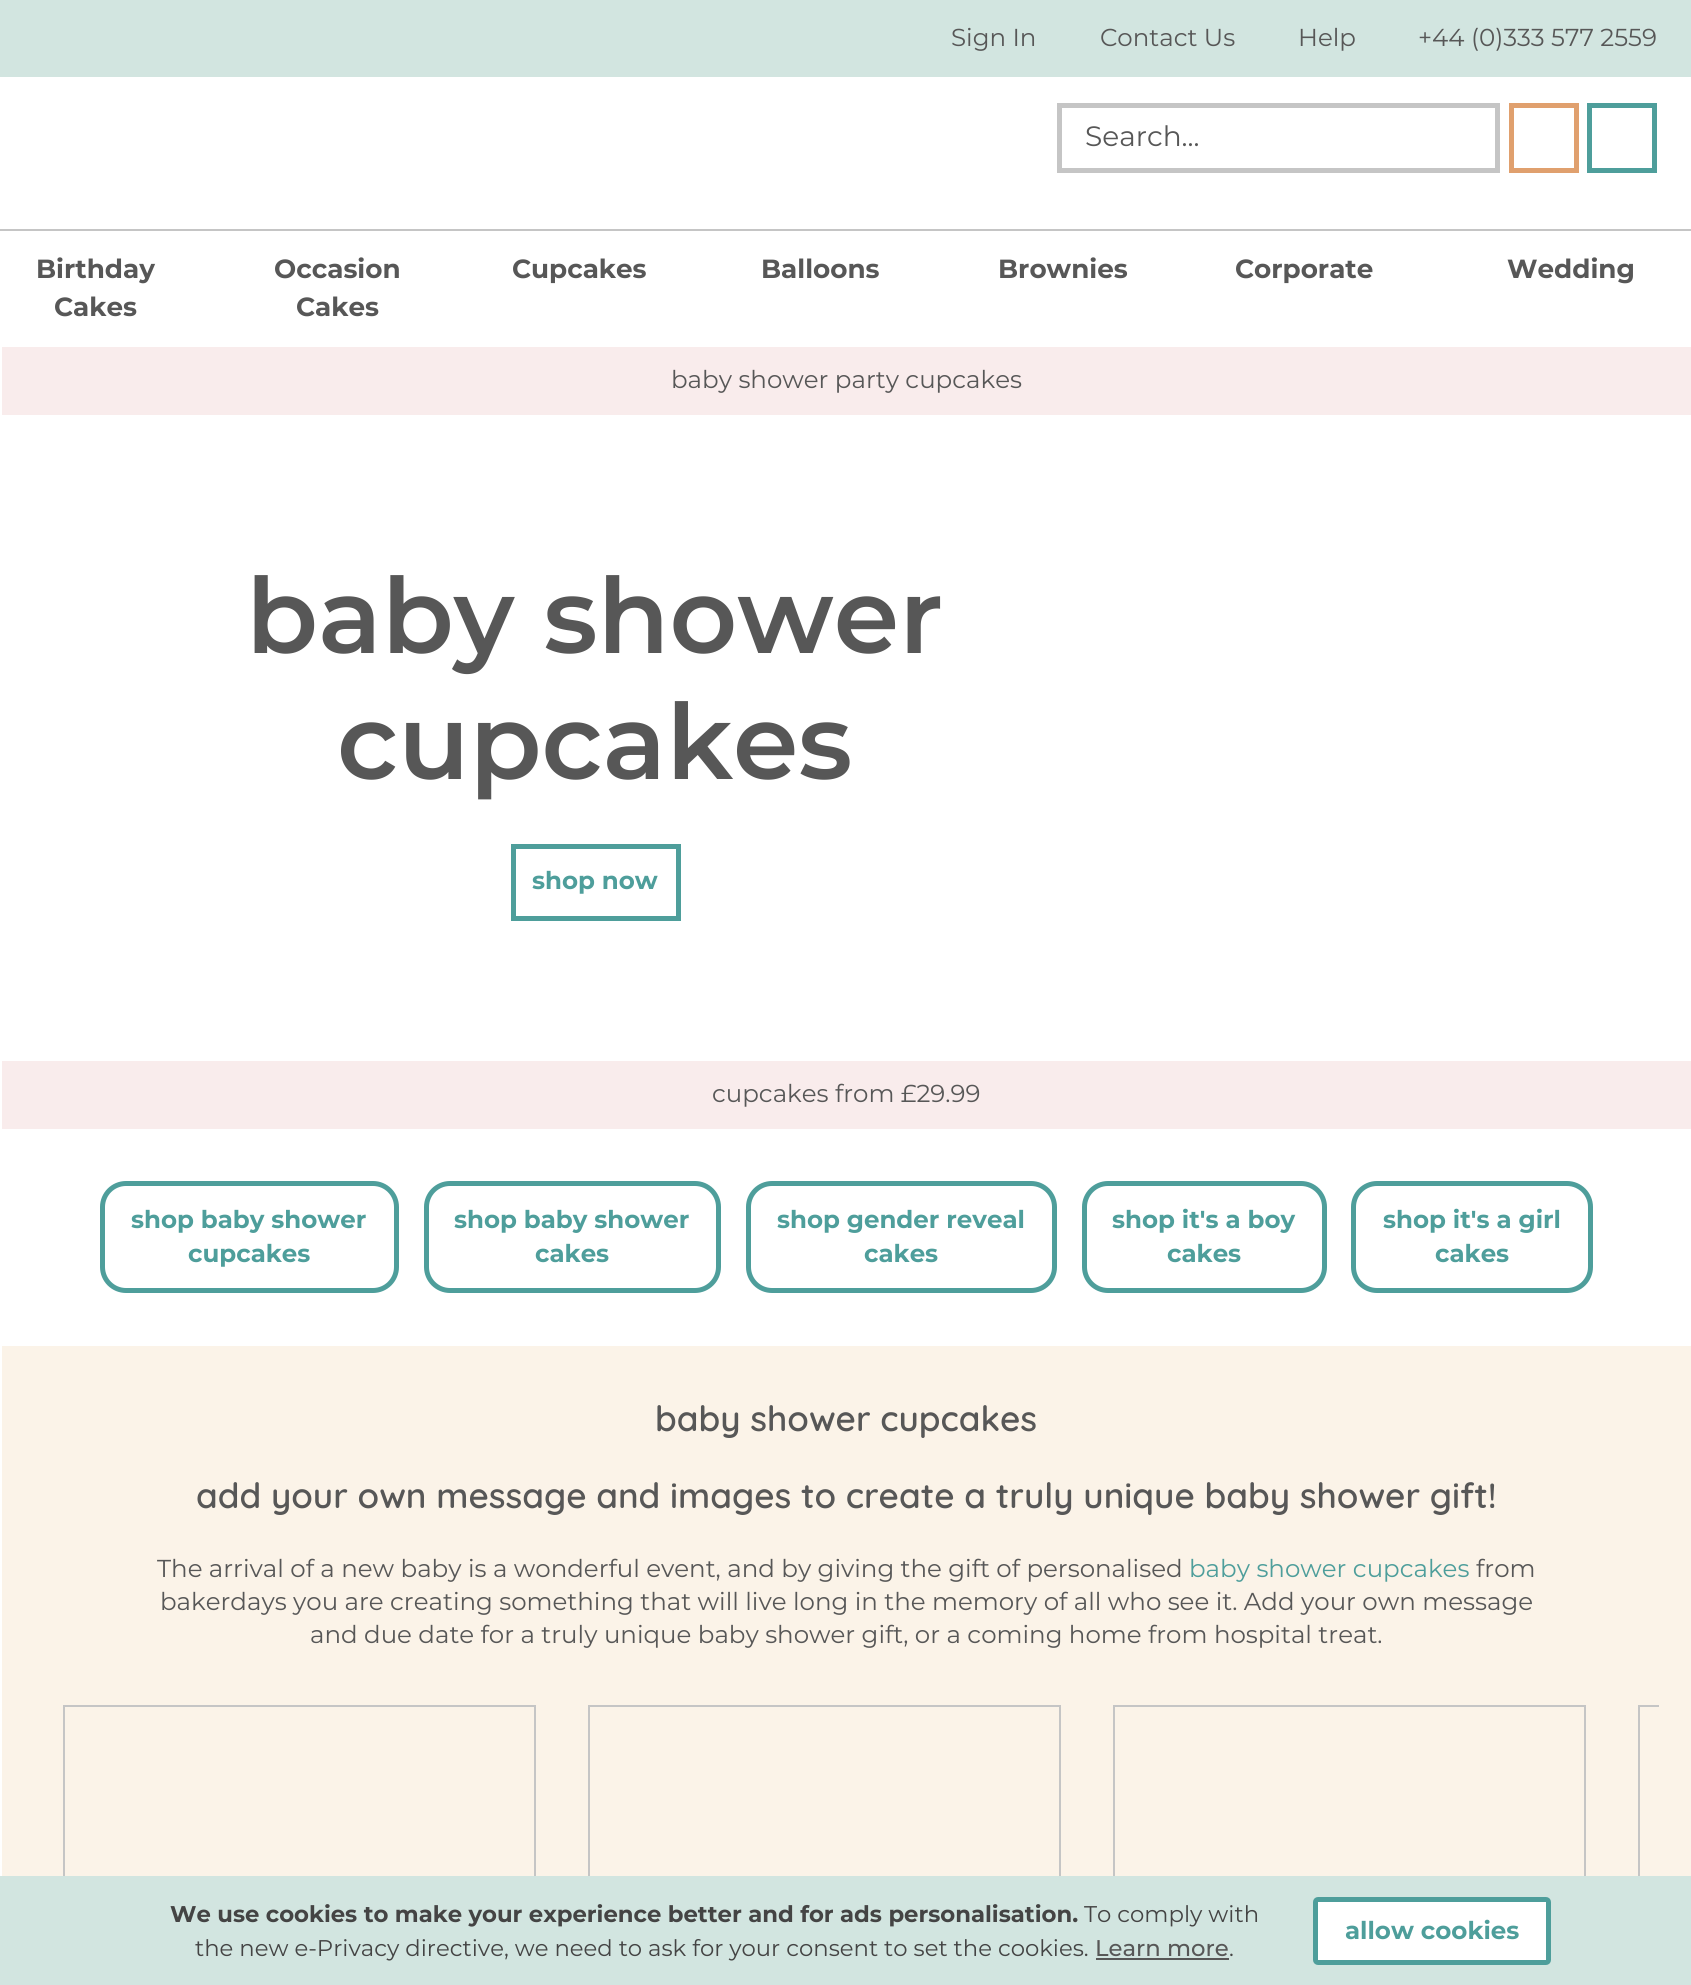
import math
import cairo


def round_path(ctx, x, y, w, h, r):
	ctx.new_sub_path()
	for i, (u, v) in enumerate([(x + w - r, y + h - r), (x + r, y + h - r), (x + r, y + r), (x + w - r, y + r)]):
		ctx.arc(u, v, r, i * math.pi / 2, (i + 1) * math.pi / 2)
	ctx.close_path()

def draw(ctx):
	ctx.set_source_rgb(1, 1, 1)
	ctx.paint()
	ctx.set_source_rgb(0.824, 0.898, 0.878)
	ctx.rectangle(0, 0, 1691, 77)
	ctx.fill()
	ctx.select_font_face('Montserrat')
	ctx.set_font_size(24.5)
	ctx.set_source_rgb(0.341, 0.341, 0.341)
	for x, y, s in [
		(951, 46, 'Sign In'),
		(1100, 46, 'Contact Us'),
		(1298, 46, 'Help'),
		(1418, 46, '+44 (0)333 577 2559'),
	]:
		ctx.move_to(x, y)
		ctx.show_text(s)
	ctx.rectangle(1059.5, 105.5, 438, 65)
	ctx.set_source_rgb(0.773, 0.773, 0.773)
	ctx.set_line_width(5)
	ctx.stroke()
	ctx.set_font_size(28)
	ctx.set_source_rgb(0.341, 0.341, 0.341)
	ctx.move_to(1085, 146)
	ctx.show_text('Search...')
	ctx.rectangle(1511.5, 105.5, 65, 65)
	ctx.set_source_rgb(0.878, 0.627, 0.431)
	ctx.stroke()
	ctx.rectangle(1589.5, 105.5, 65, 65)
	ctx.set_source_rgb(0.306, 0.62, 0.608)
	ctx.stroke()
	ctx.set_source_rgb(0.773, 0.773, 0.773)
	ctx.rectangle(0, 229, 1691, 2)
	ctx.fill()
	ctx.select_font_face('Montserrat', cairo.FONT_SLANT_NORMAL, cairo.FONT_WEIGHT_BOLD)
	ctx.set_font_size(26.25)
	ctx.set_source_rgb(0.341, 0.341, 0.341)
	for x, y, s in [
		(36, 278, 'Birthday'),
		(54, 316, 'Cakes'),
		(274, 278, 'Occasion'),
		(296, 316, 'Cakes'),
		(512, 278, 'Cupcakes'),
		(761, 278, 'Balloons'),
		(998, 278, 'Brownies'),
		(1235, 278, 'Corporate'),
		(1507, 278, 'Wedding'),
	]:
		ctx.move_to(x, y)
		ctx.show_text(s)
	ctx.set_source_rgb(0.973, 0.925, 0.925)
	ctx.rectangle(2, 347, 1689, 68)
	ctx.fill()
	ctx.select_font_face('Montserrat')
	ctx.set_font_size(24.5)
	ctx.set_source_rgb(0.341, 0.341, 0.341)
	ctx.move_to(671, 388)
	ctx.show_text('baby shower party cupcakes')
	ctx.select_font_face('Montserrat SemiBold')
	ctx.set_font_size(105)
	ctx.move_to(246, 653)
	ctx.show_text('baby shower')
	ctx.move_to(337, 779)
	ctx.show_text('cupcakes')
	ctx.rectangle(513.5, 846.5, 165, 72)
	ctx.set_source_rgb(0.306, 0.62, 0.608)
	ctx.stroke()
	ctx.select_font_face('Montserrat', cairo.FONT_SLANT_NORMAL, cairo.FONT_WEIGHT_BOLD)
	ctx.set_font_size(24.5)
	ctx.move_to(532, 889)
	ctx.show_text('shop now')
	ctx.set_source_rgb(0.973, 0.925, 0.925)
	ctx.rectangle(2, 1061, 1689, 68)
	ctx.fill()
	ctx.select_font_face('Montserrat')
	ctx.set_source_rgb(0.341, 0.341, 0.341)
	ctx.move_to(712, 1102)
	ctx.show_text('cupcakes from £29.99')
	round_path(ctx, 102.5, 1183.5, 294, 107, 23.5)
	ctx.set_source_rgb(0.306, 0.62, 0.608)
	ctx.stroke()
	ctx.select_font_face('Montserrat', cairo.FONT_SLANT_NORMAL, cairo.FONT_WEIGHT_BOLD)
	ctx.move_to(131, 1228)
	ctx.show_text('shop baby shower')
	ctx.move_to(188, 1262)
	ctx.show_text('cupcakes')
	round_path(ctx, 426.5, 1183.5, 292, 107, 23.5)
	ctx.stroke()
	ctx.move_to(454, 1228)
	ctx.show_text('shop baby shower')
	ctx.move_to(535, 1262)
	ctx.show_text('cakes')
	round_path(ctx, 748.5, 1183.5, 306, 107, 23.5)
	ctx.stroke()
	ctx.move_to(777, 1228)
	ctx.show_text('shop gender reveal')
	ctx.move_to(864, 1262)
	ctx.show_text('cakes')
	round_path(ctx, 1084.5, 1183.5, 240, 107, 23.5)
	ctx.stroke()
	ctx.move_to(1112, 1228)
	ctx.show_text('shop it\'s a boy')
	ctx.move_to(1167, 1262)
	ctx.show_text('cakes')
	round_path(ctx, 1353.5, 1183.5, 237, 107, 23.5)
	ctx.stroke()
	ctx.move_to(1383, 1228)
	ctx.show_text('shop it\'s a girl')
	ctx.move_to(1435, 1262)
	ctx.show_text('cakes')
	ctx.set_source_rgb(0.984, 0.953, 0.91)
	ctx.rectangle(2, 1346, 1689, 530)
	ctx.fill()
	ctx.select_font_face('Quicksand SemiBold')
	ctx.set_font_size(35)
	ctx.set_source_rgb(0.341, 0.341, 0.341)
	ctx.move_to(655, 1431)
	ctx.show_text('baby shower cupcakes')
	ctx.move_to(196, 1508)
	ctx.show_text('add your own message and images to create a truly unique baby shower gift!')
	ctx.select_font_face('Montserrat')
	ctx.set_font_size(24.5)
	ctx.move_to(157, 1577)
	ctx.show_text('The arrival of a new baby is a wonderful event, and by giving the gift of personalised')
	ctx.set_source_rgb(0.306, 0.62, 0.608)
	ctx.move_to(1189, 1577)
	ctx.show_text('baby shower cupcakes')
	ctx.set_source_rgb(0.341, 0.341, 0.341)
	for x, y, s in [
		(1476, 1577, 'from'),
		(160, 1610, 'bakerdays you are creating something that will live long in the memory of all who see it. Add your own message'),
		(310, 1643, 'and due date for a truly unique baby shower gift, or a coming home from hospital treat.'),
	]:
		ctx.move_to(x, y)
		ctx.show_text(s)
	ctx.rectangle(64, 1706, 471, 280)
	ctx.set_source_rgb(0.773, 0.773, 0.773)
	ctx.set_line_width(2)
	ctx.stroke()
	ctx.rectangle(589, 1706, 471, 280)
	ctx.stroke()
	ctx.rectangle(1114, 1706, 471, 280)
	ctx.stroke()
	ctx.save()
	ctx.rectangle(37, 1705, 1622, 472)
	ctx.clip()
	ctx.rectangle(1639, 1706, 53, 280)
	ctx.stroke()
	ctx.restore()
	ctx.set_source_rgb(0.824, 0.898, 0.878)
	ctx.rectangle(0, 1876, 1691, 109)
	ctx.fill()
	ctx.select_font_face('Montserrat', cairo.FONT_SLANT_NORMAL, cairo.FONT_WEIGHT_BOLD)
	ctx.set_font_size(22.75)
	ctx.set_source_rgb(0.267, 0.267, 0.267)
	ctx.move_to(170, 1922)
	ctx.show_text('We use cookies to make your experience better and for ads personalisation.')
	ctx.select_font_face('Montserrat')
	ctx.move_to(1084, 1922)
	ctx.show_text('To comply with')
	ctx.move_to(195, 1956)
	ctx.show_text('the new e-Privacy directive, we need to ask for your consent to set the cookies.')
	ctx.select_font_face('Montserrat Medium')
	ctx.set_source_rgb(0.341, 0.341, 0.341)
	ctx.move_to(1095, 1956)
	ctx.show_text('Learn more')
	ctx.rectangle(1096, 1958, 133, 2)
	ctx.fill()
	ctx.select_font_face('Montserrat')
	ctx.set_source_rgb(0.267, 0.267, 0.267)
	ctx.move_to(1229, 1956)
	ctx.show_text('.')
	ctx.set_source_rgb(1, 1, 1)
	round_path(ctx, 1315.5, 1899.5, 233, 63, 2.5)
	ctx.fill_preserve()
	ctx.set_source_rgb(0.306, 0.62, 0.608)
	ctx.set_line_width(5)
	ctx.stroke()
	ctx.select_font_face('Montserrat', cairo.FONT_SLANT_NORMAL, cairo.FONT_WEIGHT_BOLD)
	ctx.set_font_size(24.5)
	ctx.move_to(1345, 1939)
	ctx.show_text('allow cookies')


surface = cairo.ImageSurface(cairo.FORMAT_RGB24, 1691, 1985)
ctx = cairo.Context(surface)
options = cairo.FontOptions()
options.set_hint_metrics(cairo.HINT_METRICS_OFF)
options.set_hint_style(cairo.HINT_STYLE_NONE)
ctx.set_font_options(options)
ctx.set_miter_limit(4)
draw(ctx)
surface.write_to_png('image.png')
